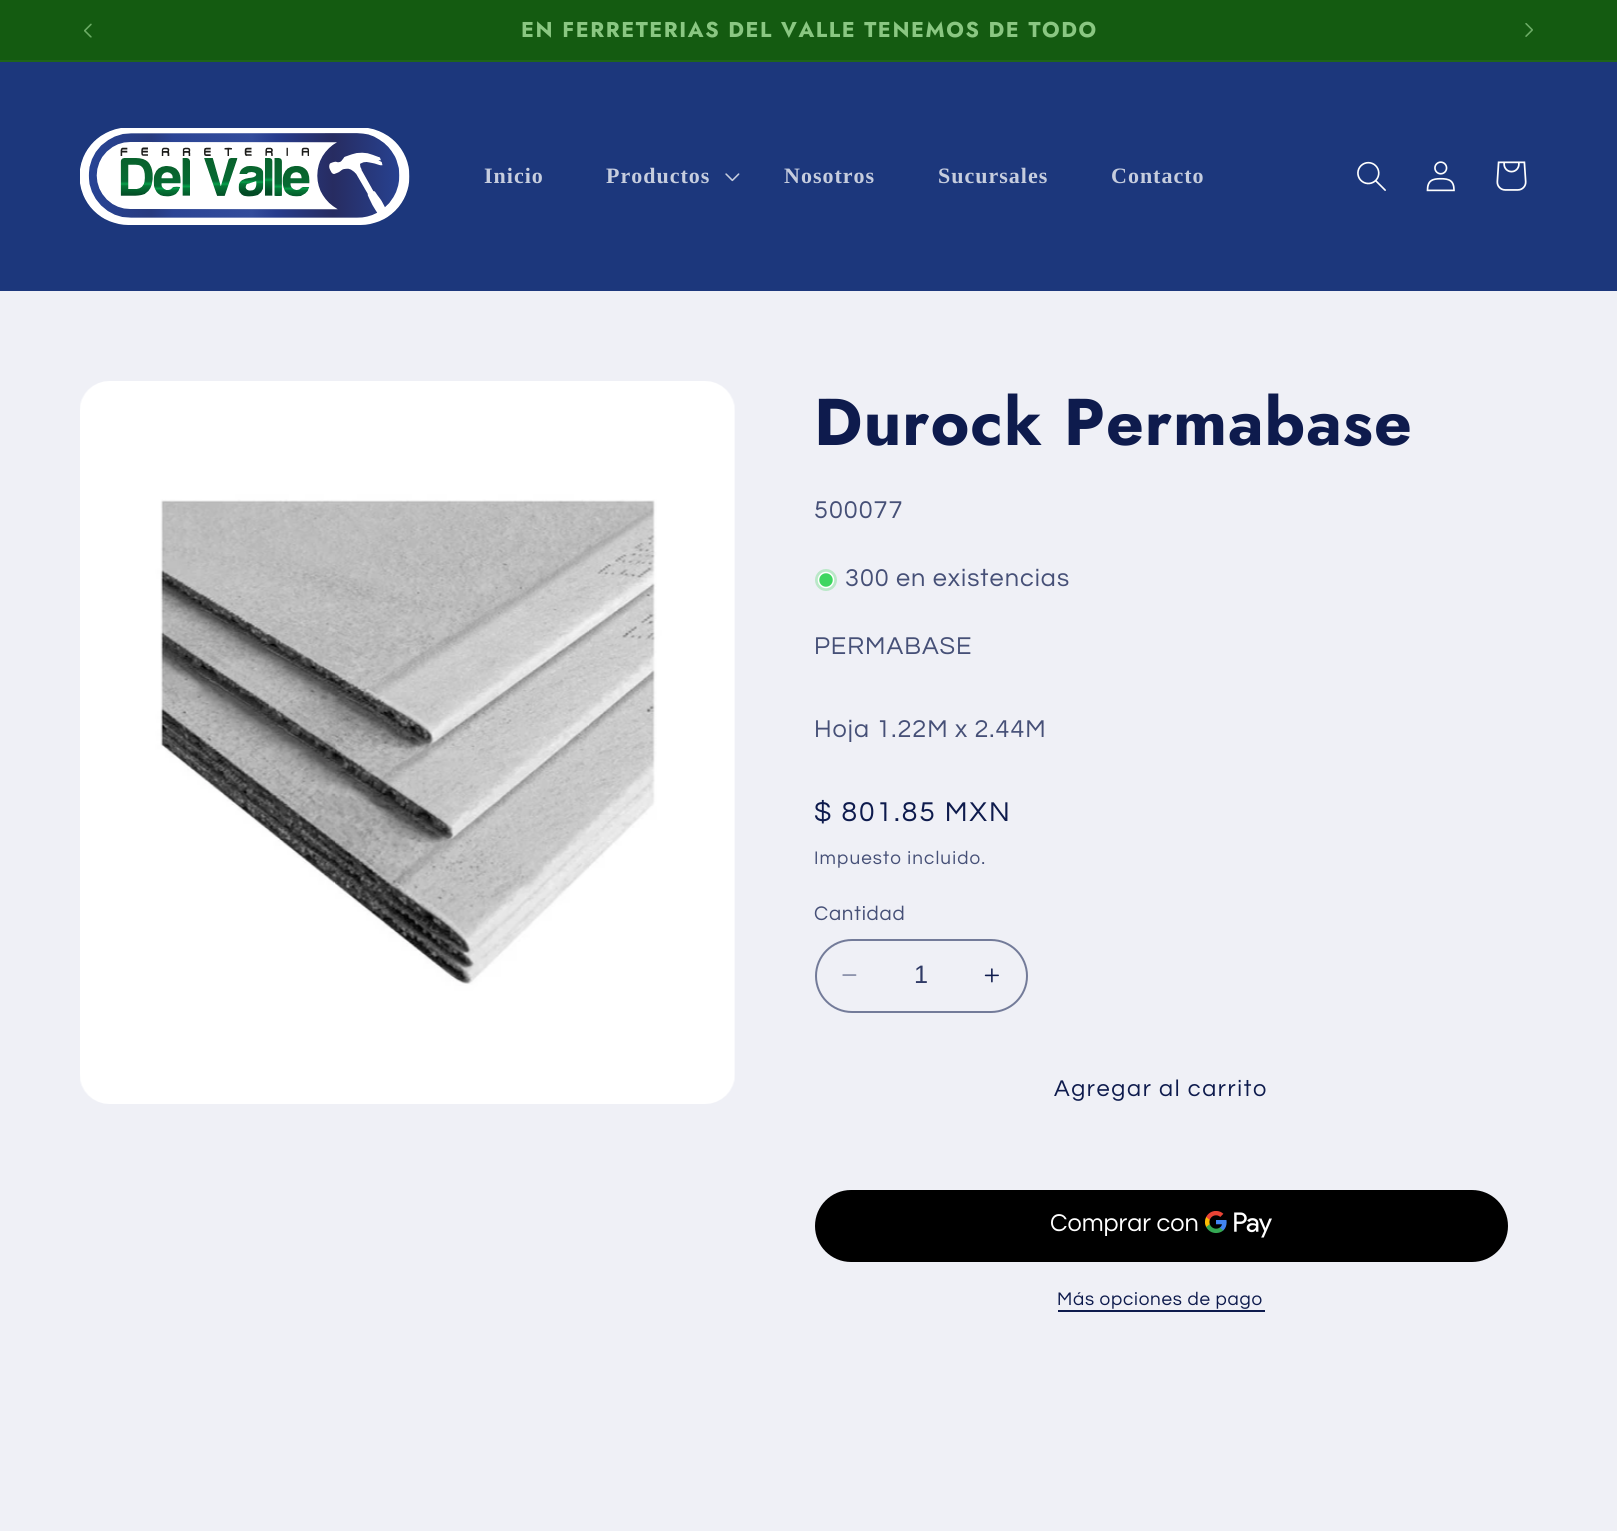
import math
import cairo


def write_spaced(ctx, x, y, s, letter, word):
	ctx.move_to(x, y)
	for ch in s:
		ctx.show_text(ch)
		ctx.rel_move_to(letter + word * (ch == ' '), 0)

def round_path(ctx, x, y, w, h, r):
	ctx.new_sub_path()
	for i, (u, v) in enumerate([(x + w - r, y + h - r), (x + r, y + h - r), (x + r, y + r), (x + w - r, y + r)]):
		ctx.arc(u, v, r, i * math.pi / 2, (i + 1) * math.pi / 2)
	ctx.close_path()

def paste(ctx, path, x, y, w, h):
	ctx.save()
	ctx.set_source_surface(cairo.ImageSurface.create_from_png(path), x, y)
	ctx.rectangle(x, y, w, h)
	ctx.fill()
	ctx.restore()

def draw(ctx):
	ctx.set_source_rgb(0.937, 0.941, 0.961)
	ctx.paint()
	ctx.set_source_rgb(0.082, 0.357, 0.067)
	ctx.rectangle(0, 0, 1617, 60)
	ctx.fill()
	ctx.set_source_rgb(0.118, 0.392, 0.102)
	ctx.rectangle(0, 60, 1617, 2)
	ctx.fill()
	paste(ctx, 'media/1.png', 84, 23, 8, 15)
	ctx.select_font_face('Jost', cairo.FONT_SLANT_NORMAL, cairo.FONT_WEIGHT_BOLD)
	ctx.set_font_size(21.45)
	ctx.set_source_rgb(0.541, 0.78, 0.51)
	write_spaced(ctx, 521, 37, 'EN FERRETERIAS DEL VALLE TENEMOS DE TODO', 1.6, 0)
	paste(ctx, 'media/2.png', 1525, 23, 8, 14)
	ctx.set_source_rgb(0.11, 0.216, 0.486)
	ctx.rectangle(0, 62, 1617, 229)
	ctx.fill()
	paste(ctx, 'media/3.png', 80, 128, 330, 97)
	ctx.select_font_face('Liberation Serif', cairo.FONT_SLANT_NORMAL, cairo.FONT_WEIGHT_BOLD)
	ctx.set_font_size(22)
	ctx.set_source_rgb(0.776, 0.804, 0.871)
	write_spaced(ctx, 484, 183, 'Inicio', 1, 0)
	write_spaced(ctx, 606, 183, 'Productos', 1, 0)
	paste(ctx, 'media/4.png', 725, 173, 15, 9)
	for x, y, s in [
		(784, 183, 'Nosotros'),
		(938, 183, 'Sucursales'),
		(1111, 183, 'Contacto'),
	]:
		write_spaced(ctx, x, y, s, 1, 0)
	paste(ctx, 'media/5.png', 1357, 161, 29, 30)
	paste(ctx, 'media/6.png', 1426, 161, 29, 31)
	paste(ctx, 'media/7.png', 1496, 161, 31, 30)
	paste(ctx, 'media/8.png', 80, 381, 655, 723)
	ctx.select_font_face('Jost', cairo.FONT_SLANT_NORMAL, cairo.FONT_WEIGHT_BOLD)
	ctx.set_font_size(66)
	ctx.set_source_rgb(0.055, 0.106, 0.302)
	write_spaced(ctx, 814, 445, 'Durock Permabase', 1, 0)
	ctx.select_font_face('Questrial')
	ctx.set_font_size(25.25)
	ctx.set_source_rgb(0.275, 0.314, 0.467)
	write_spaced(ctx, 814, 518, '500077', 1, 0)
	ctx.set_source_rgb(0.729, 0.91, 0.784)
	ctx.new_path()
	ctx.arc(826, 580, 11, 0, 2 * math.pi)
	ctx.fill()
	ctx.set_source_rgb(0.243, 0.839, 0.376)
	ctx.arc(826, 580, 7.5, 0, 2 * math.pi)
	ctx.fill_preserve()
	ctx.set_source_rgb(1, 1, 1)
	ctx.set_line_width(1.5)
	ctx.stroke()
	ctx.set_source_rgb(0.275, 0.314, 0.467)
	for x, y, s in [
		(845, 586, '300 en existencias'),
		(814, 654, 'PERMABASE'),
		(814, 737, 'Hoja 1.22M x 2.44M'),
	]:
		write_spaced(ctx, x, y, s, 1, 0)
	ctx.set_font_size(28.25)
	ctx.set_source_rgb(0.055, 0.106, 0.302)
	write_spaced(ctx, 814, 821, '$ 801.85 MXN', 2, 0)
	ctx.set_font_size(18.9)
	ctx.set_source_rgb(0.275, 0.314, 0.467)
	write_spaced(ctx, 814, 864, 'Impuesto incluido.', 1.1, 0)
	ctx.set_font_size(20.5)
	write_spaced(ctx, 814, 920, 'Cantidad', 0.75, 0)
	paste(ctx, 'media/9.png', 842, 974, 15, 2)
	paste(ctx, 'media/10.png', 984, 968, 15, 15)
	round_path(ctx, 816, 940, 211, 72, 36)
	ctx.set_source_rgb(0.451, 0.482, 0.6)
	ctx.set_line_width(2)
	ctx.stroke()
	ctx.select_font_face('Liberation Sans')
	ctx.set_font_size(25.25)
	ctx.set_source_rgb(0.188, 0.231, 0.4)
	ctx.move_to(914, 983)
	ctx.show_text('1')
	ctx.select_font_face('Questrial')
	ctx.set_font_size(23.6)
	ctx.set_source_rgb(0.055, 0.106, 0.302)
	write_spaced(ctx, 1054, 1096, 'Agregar al carrito', 1.6, 0)
	ctx.set_source_rgb(0, 0, 0)
	round_path(ctx, 815, 1190, 693, 72, 36)
	ctx.fill()
	ctx.set_font_size(25.25)
	ctx.set_source_rgb(1, 1, 1)
	ctx.move_to(1050, 1231)
	ctx.show_text('Comprar con')
	paste(ctx, 'media/11.png', 1205, 1211, 67, 27)
	ctx.set_font_size(18.9)
	ctx.set_source_rgb(0.055, 0.106, 0.302)
	write_spaced(ctx, 1057, 1305, 'Más opciones de pago', 0.75, 0)
	ctx.rectangle(1058, 1310, 207, 2)
	ctx.fill()


surface = cairo.ImageSurface(cairo.FORMAT_RGB24, 1617, 1531)
ctx = cairo.Context(surface)
options = cairo.FontOptions()
options.set_hint_metrics(cairo.HINT_METRICS_OFF)
options.set_hint_style(cairo.HINT_STYLE_NONE)
ctx.set_font_options(options)
ctx.set_miter_limit(4)
draw(ctx)
surface.write_to_png('image.png')
